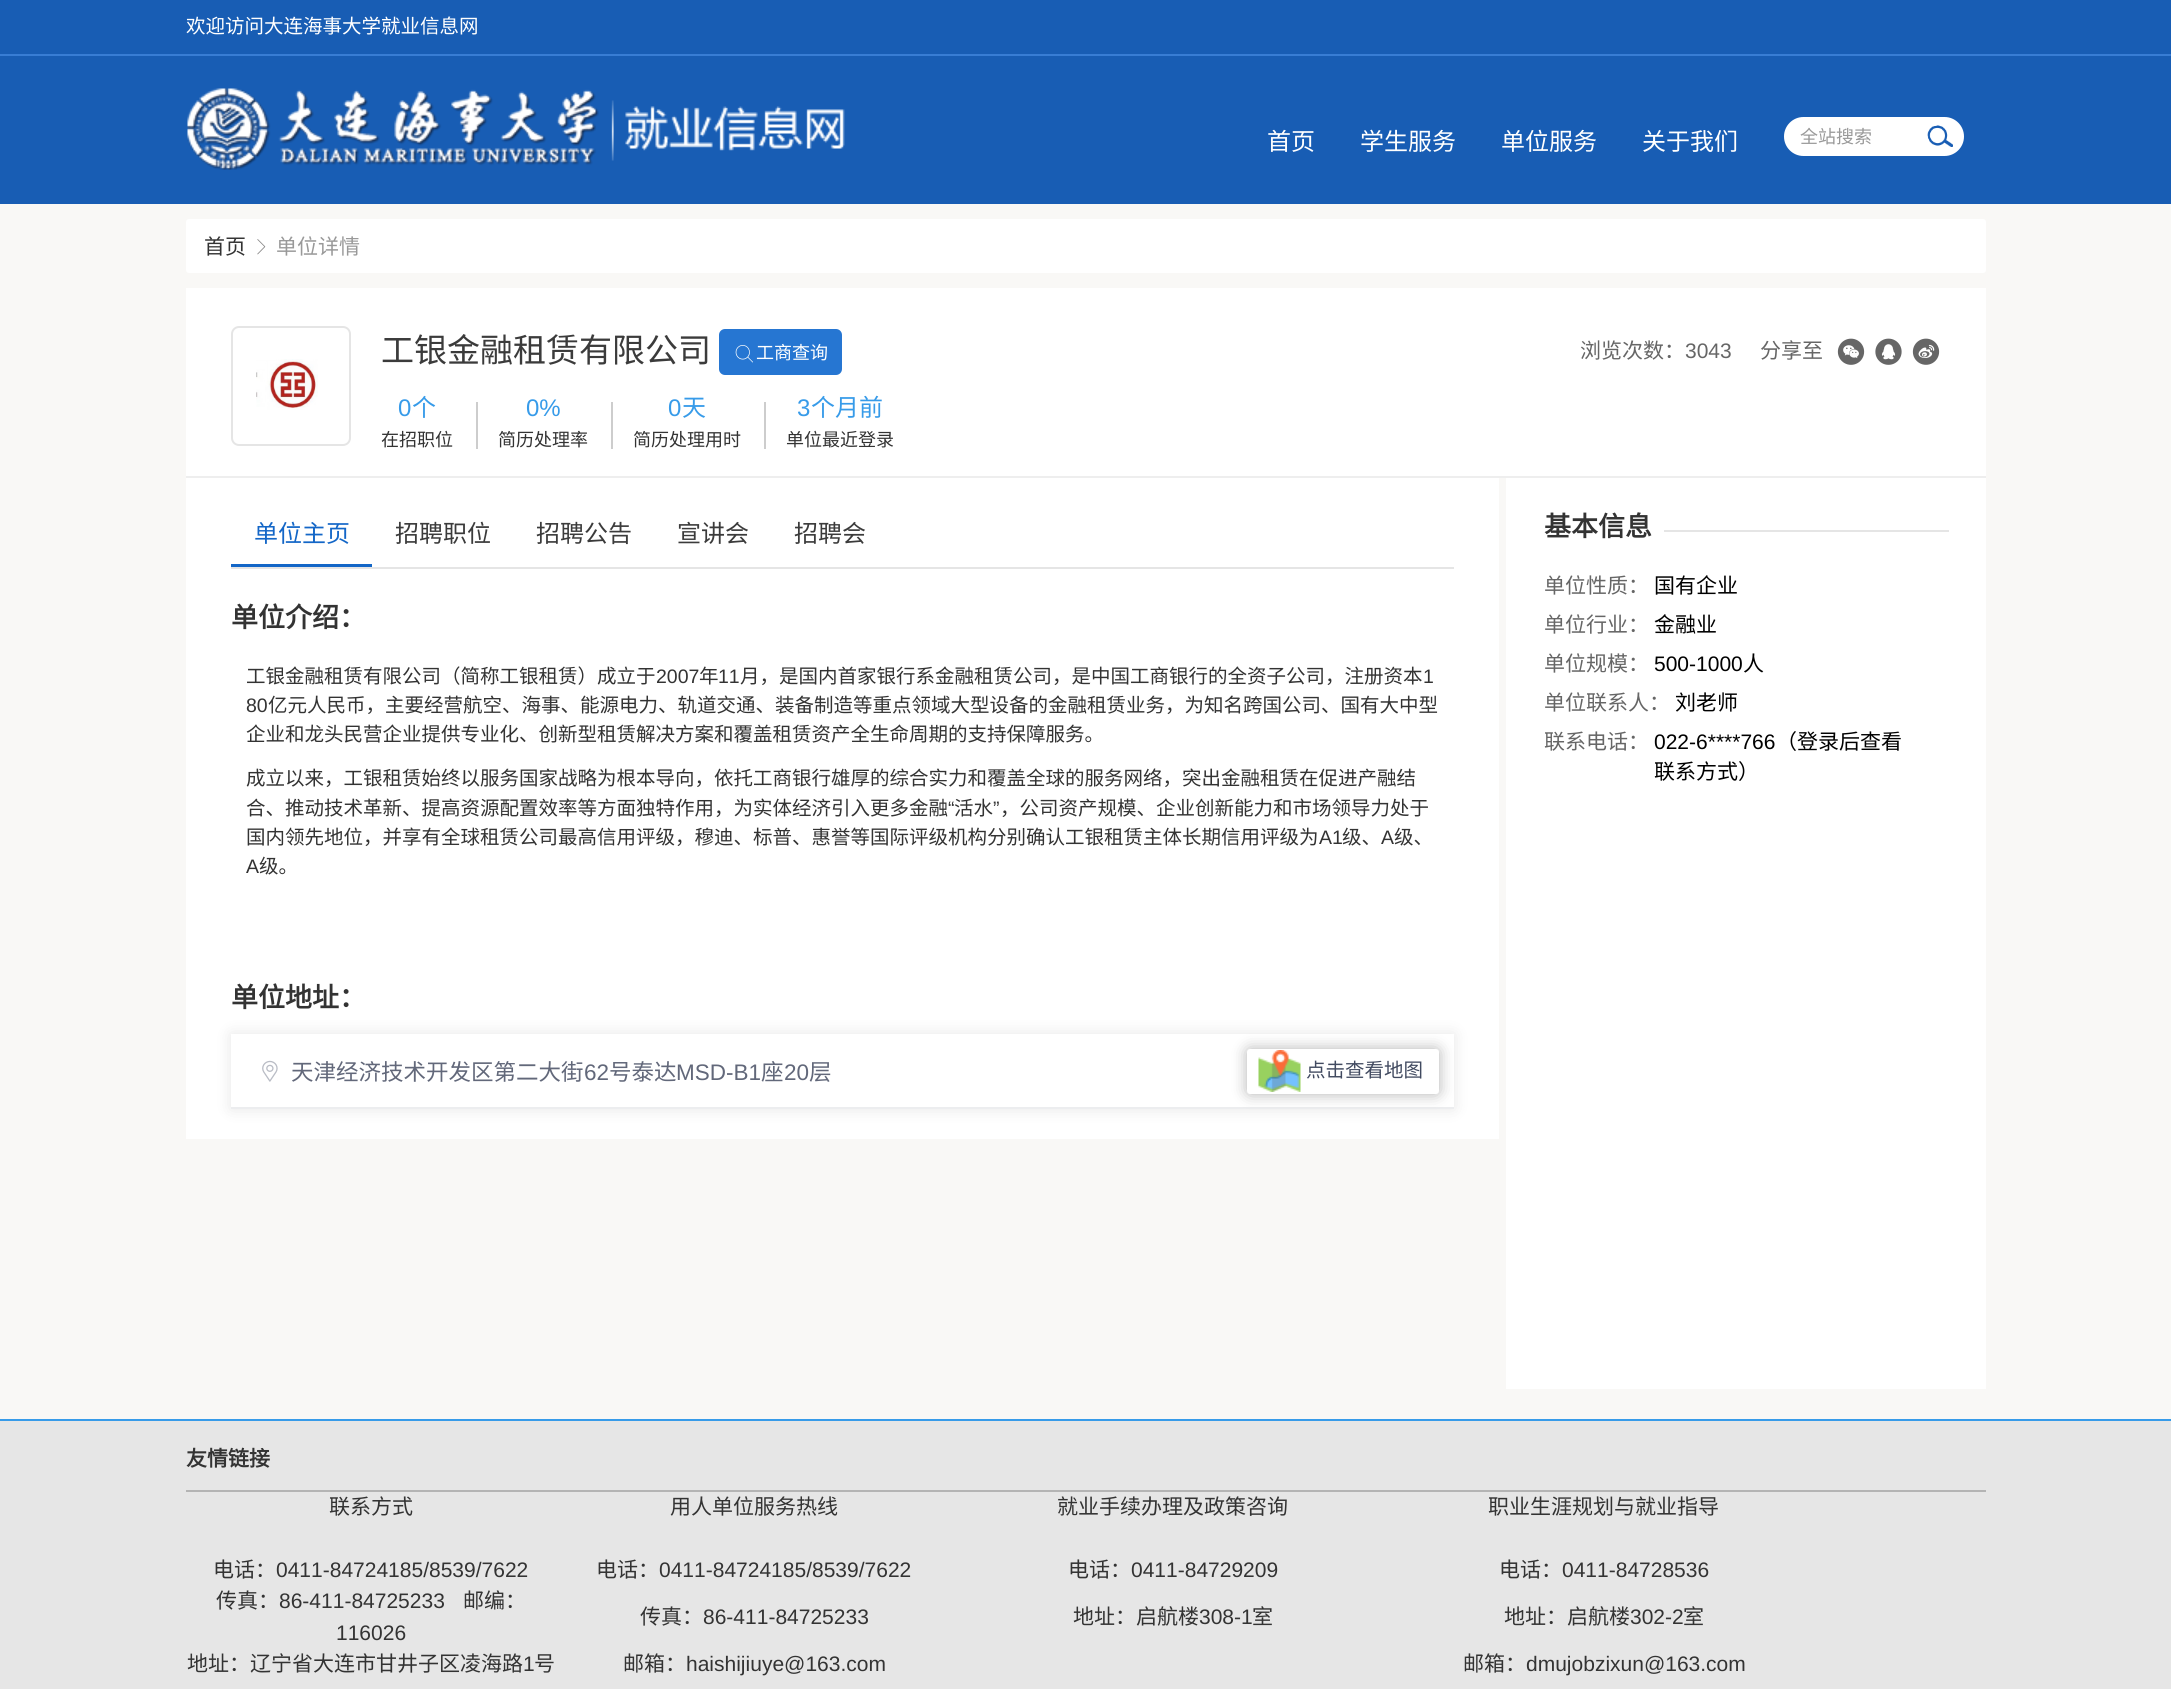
import math
import cairo


def round_path(ctx, x, y, w, h, r):
	ctx.new_sub_path()
	for i, (u, v) in enumerate([(x + w - r, y + h - r), (x + r, y + h - r), (x + r, y + r), (x + w - r, y + r)]):
		ctx.arc(u, v, r, i * math.pi / 2, (i + 1) * math.pi / 2)
	ctx.close_path()

def blur_box(ctx, x, y, w, h, r, blur, alpha):
	ctx.push_group_with_content(cairo.CONTENT_ALPHA)
	ctx.set_operator(cairo.OPERATOR_SOURCE)
	for i in range(15, -16, -2):
		e = blur * i / 6
		if min(w, h) + 2 * e > 0:
			ctx.set_source_rgba(0, 0, 0, alpha * math.erfc((i - 1) / 8.5) / 2)
			round_path(ctx, x - e, y - e, w + 2 * e, h + 2 * e, max(0, min(r + e + blur * .6, min(w, h) / 2 + e)))
			ctx.fill()
	ctx.mask(ctx.pop_group())

def paste(ctx, path, x, y, w, h):
	ctx.save()
	ctx.set_source_surface(cairo.ImageSurface.create_from_png(path), x, y)
	ctx.rectangle(x, y, w, h)
	ctx.fill()
	ctx.restore()

def draw(ctx):
	ctx.set_source_rgb(0.973, 0.969, 0.961)
	ctx.paint()
	ctx.set_source_rgb(0.094, 0.365, 0.706)
	ctx.rectangle(0, 0, 2171, 54)
	ctx.fill()
	ctx.set_source_rgb(0.22, 0.49, 0.831)
	ctx.rectangle(0, 54, 2171, 2)
	ctx.fill()
	ctx.select_font_face('Noto Sans CJK SC')
	ctx.set_font_size(19.5)
	ctx.set_source_rgb(1, 1, 1)
	ctx.move_to(186, 33)
	ctx.show_text('欢迎访问大连海事大学就业信息网')
	ctx.set_source_rgb(0.094, 0.365, 0.706)
	ctx.rectangle(0, 56, 2171, 148)
	ctx.fill()
	paste(ctx, 'media/1.png', 187, 88, 658, 82)
	ctx.set_font_size(24)
	ctx.set_source_rgb(1, 1, 1)
	for x, y, s in [
		(1267, 150, '首页'),
		(1360, 150, '学生服务'),
		(1501, 150, '单位服务'),
		(1642, 150, '关于我们'),
	]:
		ctx.move_to(x, y)
		ctx.show_text(s)
	round_path(ctx, 1785, 118, 178, 37, 18.5)
	ctx.fill_preserve()
	ctx.stroke()
	ctx.set_font_size(18)
	ctx.set_source_rgb(0.6, 0.6, 0.6)
	ctx.move_to(1800, 143)
	ctx.show_text('全站搜索')
	paste(ctx, 'media/2.png', 1927, 125, 26, 22)
	ctx.set_source_rgb(1, 1, 1)
	round_path(ctx, 186, 219, 1800, 54, 3)
	ctx.fill()
	ctx.set_font_size(21)
	ctx.set_source_rgb(0.2, 0.2, 0.2)
	ctx.move_to(204, 254)
	ctx.show_text('首页')
	paste(ctx, 'media/3.png', 257, 239, 9, 16)
	ctx.set_source_rgb(0.6, 0.6, 0.6)
	ctx.move_to(276, 254)
	ctx.show_text('单位详情')
	ctx.set_source_rgb(1, 1, 1)
	ctx.rectangle(186, 288, 1800, 188)
	ctx.fill()
	ctx.set_source_rgb(0.933, 0.933, 0.933)
	ctx.rectangle(186, 476, 1800, 2)
	ctx.fill()
	round_path(ctx, 232, 327, 118, 118, 7)
	ctx.set_source_rgb(0.898, 0.898, 0.898)
	ctx.stroke()
	paste(ctx, 'media/4.png', 256, 359, 62, 51)
	ctx.set_font_size(33)
	ctx.set_source_rgb(0.231, 0.231, 0.231)
	ctx.move_to(381, 362)
	ctx.show_text('工银金融租赁有限公司')
	ctx.set_source_rgb(0.149, 0.463, 0.824)
	round_path(ctx, 720, 330, 121, 44, 5)
	ctx.fill_preserve()
	ctx.stroke()
	paste(ctx, 'media/5.png', 735, 345, 18, 18)
	ctx.set_font_size(18)
	ctx.set_source_rgb(1, 1, 1)
	ctx.move_to(756, 359)
	ctx.show_text('工商查询')
	ctx.select_font_face('Liberation Sans')
	ctx.set_font_size(24)
	ctx.set_source_rgb(0.216, 0.608, 0.914)
	ctx.move_to(398, 416)
	ctx.show_text('0')
	ctx.select_font_face('Noto Sans CJK SC')
	ctx.move_to(412, 416)
	ctx.show_text('个')
	ctx.set_font_size(18)
	ctx.set_source_rgb(0.2, 0.2, 0.2)
	ctx.move_to(381, 446)
	ctx.show_text('在招职位')
	ctx.set_source_rgb(0.804, 0.804, 0.804)
	ctx.rectangle(476, 402, 2, 47)
	ctx.fill()
	ctx.select_font_face('Liberation Sans')
	ctx.set_font_size(24)
	ctx.set_source_rgb(0.216, 0.608, 0.914)
	ctx.move_to(526, 416)
	ctx.show_text('0%')
	ctx.select_font_face('Noto Sans CJK SC')
	ctx.set_font_size(18)
	ctx.set_source_rgb(0.2, 0.2, 0.2)
	ctx.move_to(498, 446)
	ctx.show_text('简历处理率')
	ctx.set_source_rgb(0.804, 0.804, 0.804)
	ctx.rectangle(611, 402, 2, 47)
	ctx.fill()
	ctx.select_font_face('Liberation Sans')
	ctx.set_font_size(24)
	ctx.set_source_rgb(0.216, 0.608, 0.914)
	ctx.move_to(668, 416)
	ctx.show_text('0')
	ctx.select_font_face('Noto Sans CJK SC')
	ctx.move_to(682, 416)
	ctx.show_text('天')
	ctx.set_font_size(18)
	ctx.set_source_rgb(0.2, 0.2, 0.2)
	ctx.move_to(633, 446)
	ctx.show_text('简历处理用时')
	ctx.set_source_rgb(0.804, 0.804, 0.804)
	ctx.rectangle(764, 402, 2, 47)
	ctx.fill()
	ctx.select_font_face('Liberation Sans')
	ctx.set_font_size(24)
	ctx.set_source_rgb(0.216, 0.608, 0.914)
	ctx.move_to(797, 416)
	ctx.show_text('3')
	ctx.select_font_face('Noto Sans CJK SC')
	ctx.move_to(811, 416)
	ctx.show_text('个月前')
	ctx.set_font_size(18)
	ctx.set_source_rgb(0.2, 0.2, 0.2)
	ctx.move_to(786, 446)
	ctx.show_text('单位最近登录')
	ctx.set_font_size(21)
	ctx.set_source_rgb(0.4, 0.4, 0.4)
	ctx.move_to(1580, 358)
	ctx.show_text('浏览次数：')
	ctx.select_font_face('Liberation Sans')
	ctx.move_to(1685, 358)
	ctx.show_text('3043')
	ctx.select_font_face('Noto Sans CJK SC')
	ctx.move_to(1760, 358)
	ctx.show_text('分享至')
	paste(ctx, 'media/6.png', 1837, 338, 28, 27)
	paste(ctx, 'media/7.png', 1875, 338, 27, 27)
	paste(ctx, 'media/8.png', 1912, 338, 28, 27)
	ctx.set_source_rgb(1, 1, 1)
	ctx.rectangle(186, 478, 1313, 661)
	ctx.fill()
	ctx.set_source_rgb(0.898, 0.898, 0.898)
	ctx.rectangle(231, 567, 1223, 2)
	ctx.fill()
	ctx.set_source_rgb(0.078, 0.4, 0.78)
	ctx.rectangle(231, 564, 141, 3)
	ctx.fill()
	ctx.set_font_size(24)
	ctx.move_to(254, 542)
	ctx.show_text('单位主页')
	ctx.set_source_rgb(0.231, 0.231, 0.231)
	for x, y, s in [
		(395, 542, '招聘职位'),
		(536, 542, '招聘公告'),
		(677, 542, '宣讲会'),
		(794, 542, '招聘会'),
	]:
		ctx.move_to(x, y)
		ctx.show_text(s)
	ctx.select_font_face('Noto Sans CJK SC', cairo.FONT_SLANT_NORMAL, cairo.FONT_WEIGHT_BOLD)
	ctx.set_font_size(27)
	ctx.set_source_rgb(0.2, 0.2, 0.2)
	ctx.move_to(231, 627)
	ctx.show_text('单位介绍：')
	ctx.select_font_face('Noto Sans CJK SC')
	ctx.set_font_size(19.5)
	ctx.move_to(246, 683)
	ctx.show_text('工银金融租赁有限公司（简称工银租赁）成立于')
	ctx.select_font_face('Liberation Sans')
	ctx.move_to(656, 683)
	ctx.show_text('2007')
	ctx.select_font_face('Noto Sans CJK SC')
	ctx.move_to(699, 683)
	ctx.show_text('年')
	ctx.select_font_face('Liberation Sans')
	ctx.move_to(718, 683)
	ctx.show_text('11')
	ctx.select_font_face('Noto Sans CJK SC')
	ctx.move_to(740, 683)
	ctx.show_text('月，是国内首家银行系金融租赁公司，是中国工商银行的全资子公司，注册资本')
	ctx.select_font_face('Liberation Sans')
	ctx.move_to(1423, 683)
	ctx.show_text('1')
	ctx.move_to(246, 712)
	ctx.show_text('80')
	ctx.select_font_face('Noto Sans CJK SC')
	for x, y, s in [
		(268, 712, '亿元人民币，主要经营航空、海事、能源电力、轨道交通、装备制造等重点领域大型设备的金融租赁业务，为知名跨国公司、国有大中型'),
		(246, 741, '企业和龙头民营企业提供专业化、创新型租赁解决方案和覆盖租赁资产全生命周期的支持保障服务。'),
		(246, 785, '成立以来，工银租赁始终以服务国家战略为根本导向，依托工商银行雄厚的综合实力和覆盖全球的服务网络，突出金融租赁在促进产融结'),
		(246, 815, '合、推动技术革新、提高资源配置效率等方面独特作用，为实体经济引入更多金融'),
	]:
		ctx.move_to(x, y)
		ctx.show_text(s)
	ctx.select_font_face('Liberation Sans')
	ctx.move_to(948, 815)
	ctx.show_text('“')
	ctx.select_font_face('Noto Sans CJK SC')
	ctx.move_to(954, 815)
	ctx.show_text('活水')
	ctx.select_font_face('Liberation Sans')
	ctx.move_to(993, 815)
	ctx.show_text('”')
	ctx.select_font_face('Noto Sans CJK SC')
	ctx.move_to(1000, 815)
	ctx.show_text('，公司资产规模、企业创新能力和市场领导力处于')
	ctx.move_to(246, 844)
	ctx.show_text('国内领先地位，并享有全球租赁公司最高信用评级，穆迪、标普、惠誉等国际评级机构分别确认工银租赁主体长期信用评级为')
	ctx.select_font_face('Liberation Sans')
	ctx.move_to(1319, 844)
	ctx.show_text('A1')
	ctx.select_font_face('Noto Sans CJK SC')
	ctx.move_to(1342, 844)
	ctx.show_text('级、')
	ctx.select_font_face('Liberation Sans')
	ctx.move_to(1381, 844)
	ctx.show_text('A')
	ctx.select_font_face('Noto Sans CJK SC')
	ctx.move_to(1394, 844)
	ctx.show_text('级、')
	ctx.select_font_face('Liberation Sans')
	ctx.move_to(246, 873)
	ctx.show_text('A')
	ctx.select_font_face('Noto Sans CJK SC')
	ctx.move_to(259, 873)
	ctx.show_text('级。')
	ctx.select_font_face('Noto Sans CJK SC', cairo.FONT_SLANT_NORMAL, cairo.FONT_WEIGHT_BOLD)
	ctx.set_font_size(27)
	ctx.move_to(231, 1007)
	ctx.show_text('单位地址：')
	ctx.save()
	ctx.set_fill_rule(cairo.FILL_RULE_EVEN_ODD)
	ctx.new_path()
	ctx.move_to(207, 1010)
	ctx.line_to(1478, 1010)
	ctx.line_to(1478, 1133)
	ctx.line_to(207, 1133)
	ctx.close_path()
	ctx.move_to(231, 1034)
	ctx.line_to(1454, 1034)
	ctx.line_to(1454, 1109)
	ctx.line_to(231, 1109)
	ctx.close_path()
	ctx.clip()
	ctx.set_source_rgb(0, 0, 0)
	blur_box(ctx, 231, 1034, 1223, 75, 0, 7.5, 0.1)
	ctx.restore()
	ctx.set_source_rgb(0.925, 0.929, 0.937)
	ctx.rectangle(231, 1107, 1223, 2)
	ctx.fill()
	paste(ctx, 'media/9.png', 262, 1060, 16, 22)
	ctx.select_font_face('Noto Sans CJK SC')
	ctx.set_font_size(22.5)
	ctx.set_source_rgb(0.384, 0.408, 0.478)
	ctx.move_to(291, 1080)
	ctx.show_text('天津经济技术开发区第二大街')
	ctx.select_font_face('Liberation Sans')
	ctx.move_to(584, 1080)
	ctx.show_text('62')
	ctx.select_font_face('Noto Sans CJK SC')
	ctx.move_to(609, 1080)
	ctx.show_text('号泰达')
	ctx.select_font_face('Liberation Sans')
	ctx.move_to(676, 1080)
	ctx.show_text('MSD-B1')
	ctx.select_font_face('Noto Sans CJK SC')
	ctx.move_to(761, 1080)
	ctx.show_text('座')
	ctx.select_font_face('Liberation Sans')
	ctx.move_to(784, 1080)
	ctx.show_text('20')
	ctx.select_font_face('Noto Sans CJK SC')
	ctx.move_to(809, 1080)
	ctx.show_text('层')
	ctx.set_source_rgb(0, 0, 0)
	blur_box(ctx, 1247, 1049, 192, 45, 3, 7.5, 0.3)
	ctx.set_source_rgb(1, 1, 1)
	round_path(ctx, 1247, 1049, 192, 45, 3)
	ctx.fill()
	paste(ctx, 'media/10.png', 1258, 1050, 43, 42)
	ctx.set_font_size(19.5)
	ctx.set_source_rgb(0.255, 0.29, 0.376)
	ctx.move_to(1306, 1077)
	ctx.show_text('点击查看地图')
	ctx.set_source_rgb(1, 1, 1)
	ctx.rectangle(1506, 478, 480, 911)
	ctx.fill()
	ctx.select_font_face('Noto Sans CJK SC', cairo.FONT_SLANT_NORMAL, cairo.FONT_WEIGHT_BOLD)
	ctx.set_font_size(27)
	ctx.set_source_rgb(0.2, 0.2, 0.2)
	ctx.move_to(1544, 536)
	ctx.show_text('基本信息')
	ctx.set_source_rgb(0.898, 0.898, 0.898)
	ctx.rectangle(1664, 530, 285, 2)
	ctx.fill()
	ctx.select_font_face('Noto Sans CJK SC')
	ctx.set_font_size(21)
	ctx.set_source_rgb(0.4, 0.4, 0.4)
	ctx.move_to(1544, 593)
	ctx.show_text('单位性质：')
	ctx.set_source_rgb(0, 0, 0)
	ctx.move_to(1654, 593)
	ctx.show_text('国有企业')
	ctx.set_source_rgb(0.4, 0.4, 0.4)
	ctx.move_to(1544, 632)
	ctx.show_text('单位行业：')
	ctx.set_source_rgb(0, 0, 0)
	ctx.move_to(1654, 632)
	ctx.show_text('金融业')
	ctx.set_source_rgb(0.4, 0.4, 0.4)
	ctx.move_to(1544, 671)
	ctx.show_text('单位规模：')
	ctx.select_font_face('Liberation Sans')
	ctx.set_source_rgb(0, 0, 0)
	ctx.move_to(1654, 671)
	ctx.show_text('500-1000')
	ctx.select_font_face('Noto Sans CJK SC')
	ctx.move_to(1743, 671)
	ctx.show_text('人')
	ctx.set_source_rgb(0.4, 0.4, 0.4)
	ctx.move_to(1544, 710)
	ctx.show_text('单位联系人：')
	ctx.set_source_rgb(0, 0, 0)
	ctx.move_to(1675, 710)
	ctx.show_text('刘老师')
	ctx.set_source_rgb(0.4, 0.4, 0.4)
	ctx.move_to(1544, 749)
	ctx.show_text('联系电话：')
	ctx.select_font_face('Liberation Sans')
	ctx.set_source_rgb(0, 0, 0)
	ctx.move_to(1654, 749)
	ctx.show_text('022-6****766')
	ctx.select_font_face('Noto Sans CJK SC')
	ctx.move_to(1776, 749)
	ctx.show_text('（登录后查看')
	ctx.move_to(1654, 779)
	ctx.show_text('联系方式）')
	ctx.set_source_rgb(0.902, 0.902, 0.902)
	ctx.rectangle(0, 1421, 2171, 268)
	ctx.fill()
	ctx.set_source_rgb(0.216, 0.608, 0.914)
	ctx.rectangle(0, 1419, 2171, 2)
	ctx.fill()
	ctx.set_source_rgb(0.706, 0.706, 0.706)
	ctx.rectangle(186, 1490, 1800, 2)
	ctx.fill()
	ctx.select_font_face('Noto Sans CJK SC', cairo.FONT_SLANT_NORMAL, cairo.FONT_WEIGHT_BOLD)
	ctx.set_source_rgb(0.2, 0.2, 0.2)
	ctx.move_to(186, 1466)
	ctx.show_text('友情链接')
	ctx.select_font_face('Noto Sans CJK SC')
	for x, y, s in [
		(329, 1514, '联系方式'),
		(670, 1514, '用人单位服务热线'),
		(1057, 1514, '就业手续办理及政策咨询'),
		(1488, 1514, '职业生涯规划与就业指导'),
		(213, 1577, '电话：'),
	]:
		ctx.move_to(x, y)
		ctx.show_text(s)
	ctx.select_font_face('Liberation Sans')
	ctx.move_to(276, 1577)
	ctx.show_text('0411-84724185/8539/7622')
	ctx.select_font_face('Noto Sans CJK SC')
	ctx.move_to(596, 1577)
	ctx.show_text('电话：')
	ctx.select_font_face('Liberation Sans')
	ctx.move_to(659, 1577)
	ctx.show_text('0411-84724185/8539/7622')
	ctx.select_font_face('Noto Sans CJK SC')
	ctx.move_to(1068, 1577)
	ctx.show_text('电话：')
	ctx.select_font_face('Liberation Sans')
	ctx.move_to(1131, 1577)
	ctx.show_text('0411-84729209')
	ctx.select_font_face('Noto Sans CJK SC')
	ctx.move_to(1499, 1577)
	ctx.show_text('电话：')
	ctx.select_font_face('Liberation Sans')
	ctx.move_to(1562, 1577)
	ctx.show_text('0411-84728536')
	ctx.select_font_face('Noto Sans CJK SC')
	ctx.move_to(216, 1608)
	ctx.show_text('传真：')
	ctx.select_font_face('Liberation Sans')
	ctx.move_to(279, 1608)
	ctx.show_text('86-411-84725233')
	ctx.select_font_face('Noto Sans CJK SC')
	ctx.move_to(463, 1608)
	ctx.show_text('邮编：')
	ctx.select_font_face('Liberation Sans')
	ctx.move_to(336, 1640)
	ctx.show_text('116026')
	ctx.select_font_face('Noto Sans CJK SC')
	ctx.move_to(640, 1624)
	ctx.show_text('传真：')
	ctx.select_font_face('Liberation Sans')
	ctx.move_to(703, 1624)
	ctx.show_text('86-411-84725233')
	ctx.select_font_face('Noto Sans CJK SC')
	ctx.move_to(1073, 1624)
	ctx.show_text('地址：启航楼')
	ctx.select_font_face('Liberation Sans')
	ctx.move_to(1199, 1624)
	ctx.show_text('308-1')
	ctx.select_font_face('Noto Sans CJK SC')
	ctx.move_to(1252, 1624)
	ctx.show_text('室')
	ctx.move_to(1504, 1624)
	ctx.show_text('地址：启航楼')
	ctx.select_font_face('Liberation Sans')
	ctx.move_to(1630, 1624)
	ctx.show_text('302-2')
	ctx.select_font_face('Noto Sans CJK SC')
	ctx.move_to(1683, 1624)
	ctx.show_text('室')
	ctx.move_to(187, 1671)
	ctx.show_text('地址：辽宁省大连市甘井子区凌海路')
	ctx.select_font_face('Liberation Sans')
	ctx.move_to(523, 1671)
	ctx.show_text('1')
	ctx.select_font_face('Noto Sans CJK SC')
	ctx.move_to(534, 1671)
	ctx.show_text('号')
	ctx.move_to(623, 1671)
	ctx.show_text('邮箱：')
	ctx.select_font_face('Liberation Sans')
	ctx.move_to(686, 1671)
	ctx.show_text('haishijiuye@163.com')
	ctx.select_font_face('Noto Sans CJK SC')
	ctx.move_to(1463, 1671)
	ctx.show_text('邮箱：')
	ctx.select_font_face('Liberation Sans')
	ctx.move_to(1526, 1671)
	ctx.show_text('dmujobzixun@163.com')


surface = cairo.ImageSurface(cairo.FORMAT_RGB24, 2171, 1689)
ctx = cairo.Context(surface)
options = cairo.FontOptions()
options.set_hint_metrics(cairo.HINT_METRICS_OFF)
options.set_hint_style(cairo.HINT_STYLE_NONE)
ctx.set_font_options(options)
ctx.set_miter_limit(4)
draw(ctx)
surface.write_to_png('image.png')
